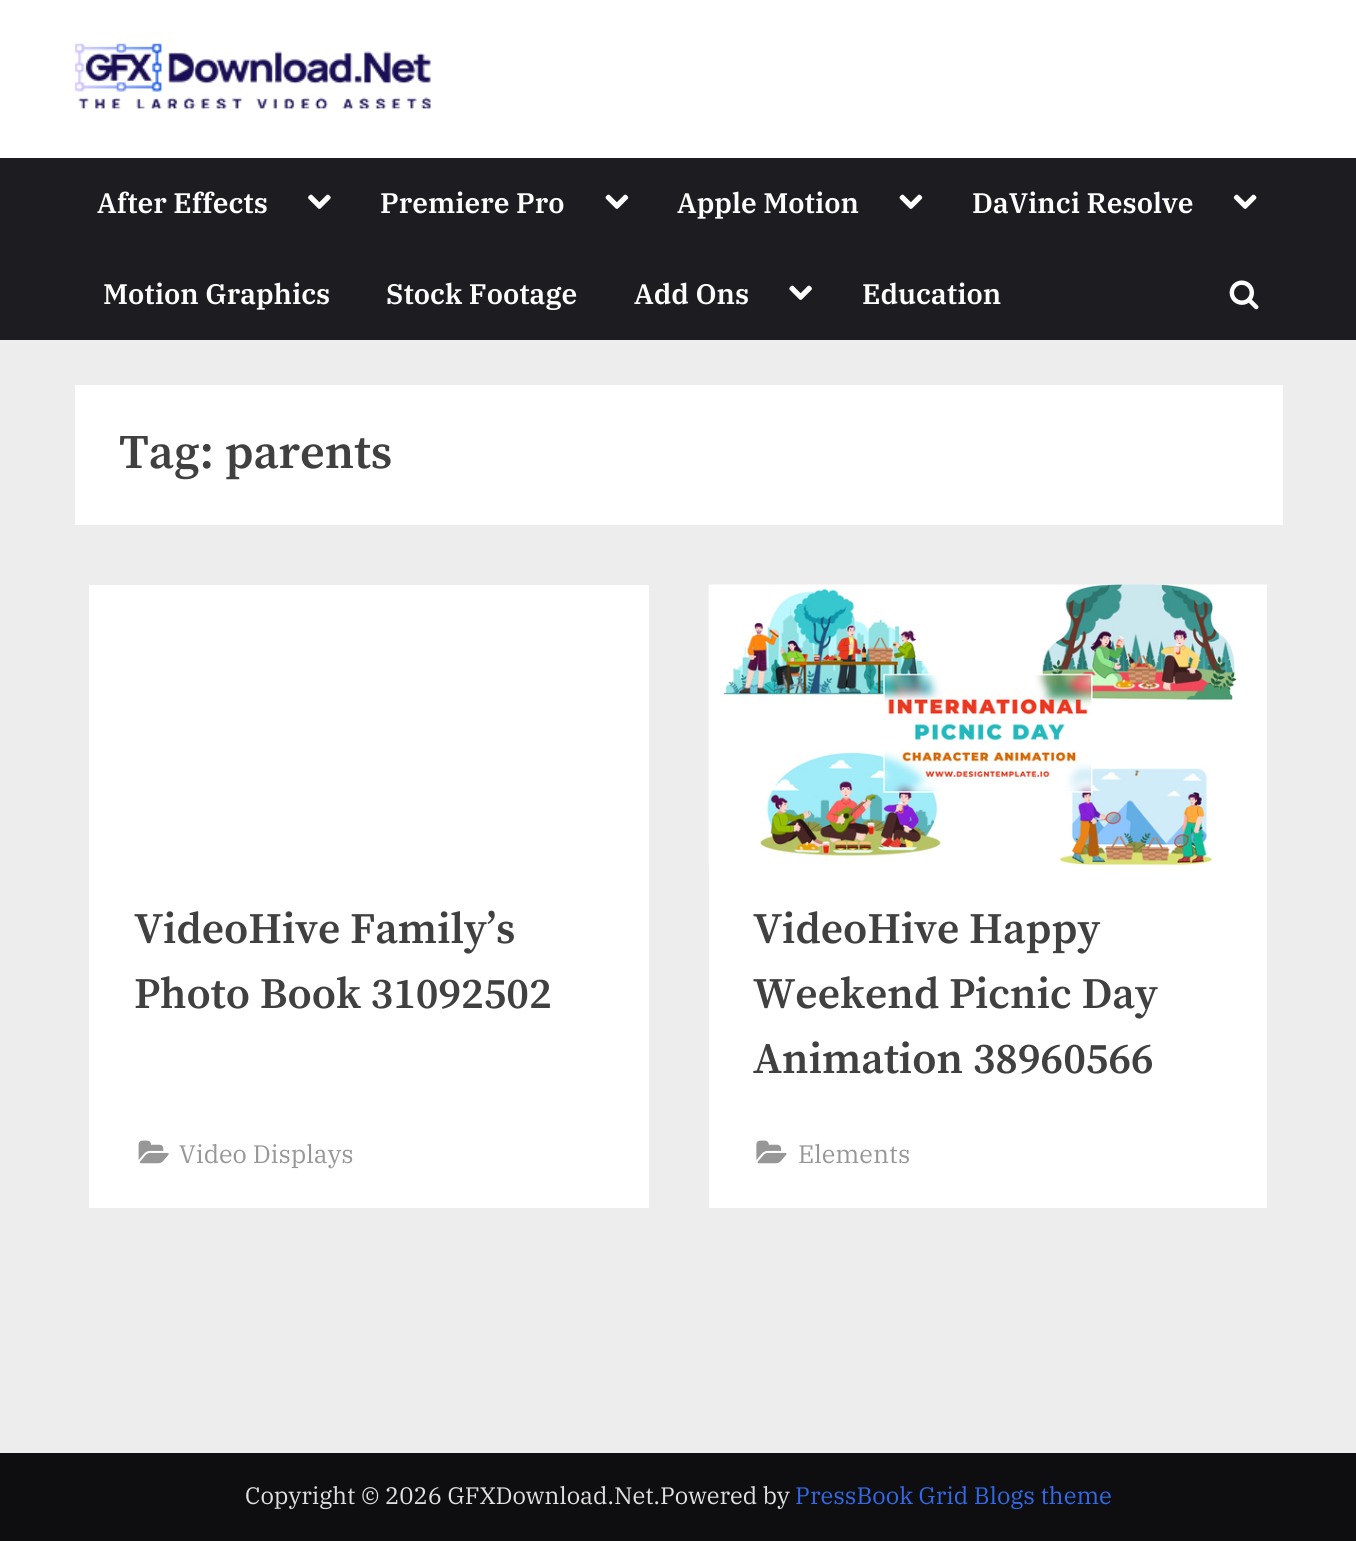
import math
import cairo


def paste(ctx, path, x, y, w, h):
	ctx.save()
	ctx.set_source_surface(cairo.ImageSurface.create_from_png(path), x, y)
	ctx.rectangle(x, y, w, h)
	ctx.fill()
	ctx.restore()

def draw(ctx):
	ctx.set_source_rgb(0.929, 0.929, 0.929)
	ctx.paint()
	ctx.set_source_rgb(1, 1, 1)
	ctx.rectangle(0, 0, 1356, 158)
	ctx.fill()
	paste(ctx, 'media/1.png', 75, 43, 356, 66)
	ctx.set_source_rgb(0.11, 0.11, 0.129)
	ctx.rectangle(0, 158, 1356, 182)
	ctx.fill()
	ctx.select_font_face('IBM Plex Serif SemiBold')
	ctx.set_font_size(28.25)
	ctx.set_source_rgb(1, 1, 1)
	ctx.move_to(97, 213)
	ctx.show_text('After Effects')
	paste(ctx, 'media/2.png', 308, 194, 23, 15)
	ctx.move_to(380, 213)
	ctx.show_text('Premiere Pro')
	paste(ctx, 'media/3.png', 605, 194, 24, 15)
	ctx.move_to(677, 213)
	ctx.show_text('Apple Motion')
	paste(ctx, 'media/3.png', 899, 194, 24, 15)
	ctx.move_to(972, 213)
	ctx.show_text('DaVinci Resolve')
	paste(ctx, 'media/4.png', 1233, 194, 24, 15)
	for x, y, s in [
		(103, 304, 'Motion Graphics'),
		(386, 304, 'Stock Footage'),
		(634, 304, 'Add Ons'),
	]:
		ctx.move_to(x, y)
		ctx.show_text(s)
	paste(ctx, 'media/5.png', 789, 285, 23, 15)
	ctx.move_to(862, 304)
	ctx.show_text('Education')
	paste(ctx, 'media/6.png', 1229, 280, 30, 30)
	ctx.rectangle(75, 385, 1208, 140)
	ctx.fill()
	ctx.select_font_face('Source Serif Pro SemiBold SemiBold')
	ctx.set_font_size(48.25)
	ctx.set_source_rgb(0.251, 0.251, 0.251)
	ctx.move_to(119, 468)
	ctx.show_text('Tag: parents')
	ctx.set_source_rgb(1, 1, 1)
	ctx.rectangle(89, 585, 560, 623)
	ctx.fill()
	ctx.set_font_size(43.5)
	ctx.set_source_rgb(0.251, 0.251, 0.251)
	ctx.move_to(134, 943)
	ctx.show_text('VideoHive Family’s')
	ctx.move_to(134, 1008)
	ctx.show_text('Photo Book 31092502')
	paste(ctx, 'media/7.png', 138, 1140, 31, 24)
	ctx.select_font_face('IBM Plex Serif')
	ctx.set_font_size(25.25)
	ctx.set_source_rgb(0.592, 0.592, 0.592)
	ctx.move_to(179, 1163)
	ctx.show_text('Video Displays')
	ctx.set_source_rgb(1, 1, 1)
	ctx.rectangle(709, 864, 558, 344)
	ctx.fill()
	paste(ctx, 'media/8.png', 708, 584, 559, 281)
	ctx.select_font_face('Source Serif Pro SemiBold SemiBold')
	ctx.set_font_size(43.5)
	ctx.set_source_rgb(0.251, 0.251, 0.251)
	for x, y, s in [
		(753, 943, 'VideoHive Happy'),
		(753, 1008, 'Weekend Picnic Day'),
		(753, 1073, 'Animation 38960566'),
	]:
		ctx.move_to(x, y)
		ctx.show_text(s)
	paste(ctx, 'media/9.png', 756, 1140, 31, 24)
	ctx.select_font_face('IBM Plex Serif')
	ctx.set_font_size(25.25)
	ctx.set_source_rgb(0.592, 0.592, 0.592)
	ctx.move_to(798, 1163)
	ctx.show_text('Elements')
	ctx.set_source_rgb(0.055, 0.055, 0.067)
	ctx.rectangle(0, 1453, 1356, 88)
	ctx.fill()
	ctx.set_font_size(23.8)
	ctx.set_source_rgb(0.882, 0.882, 0.882)
	ctx.move_to(245, 1504)
	ctx.show_text('Copyright © 2026 GFXDownload.Net.Powered by')
	ctx.set_source_rgb(0.2, 0.412, 0.898)
	ctx.move_to(795, 1504)
	ctx.show_text('PressBook Grid Blogs theme')


surface = cairo.ImageSurface(cairo.FORMAT_RGB24, 1356, 1541)
ctx = cairo.Context(surface)
options = cairo.FontOptions()
options.set_hint_metrics(cairo.HINT_METRICS_OFF)
options.set_hint_style(cairo.HINT_STYLE_NONE)
ctx.set_font_options(options)
ctx.set_miter_limit(4)
draw(ctx)
surface.write_to_png('image.png')
